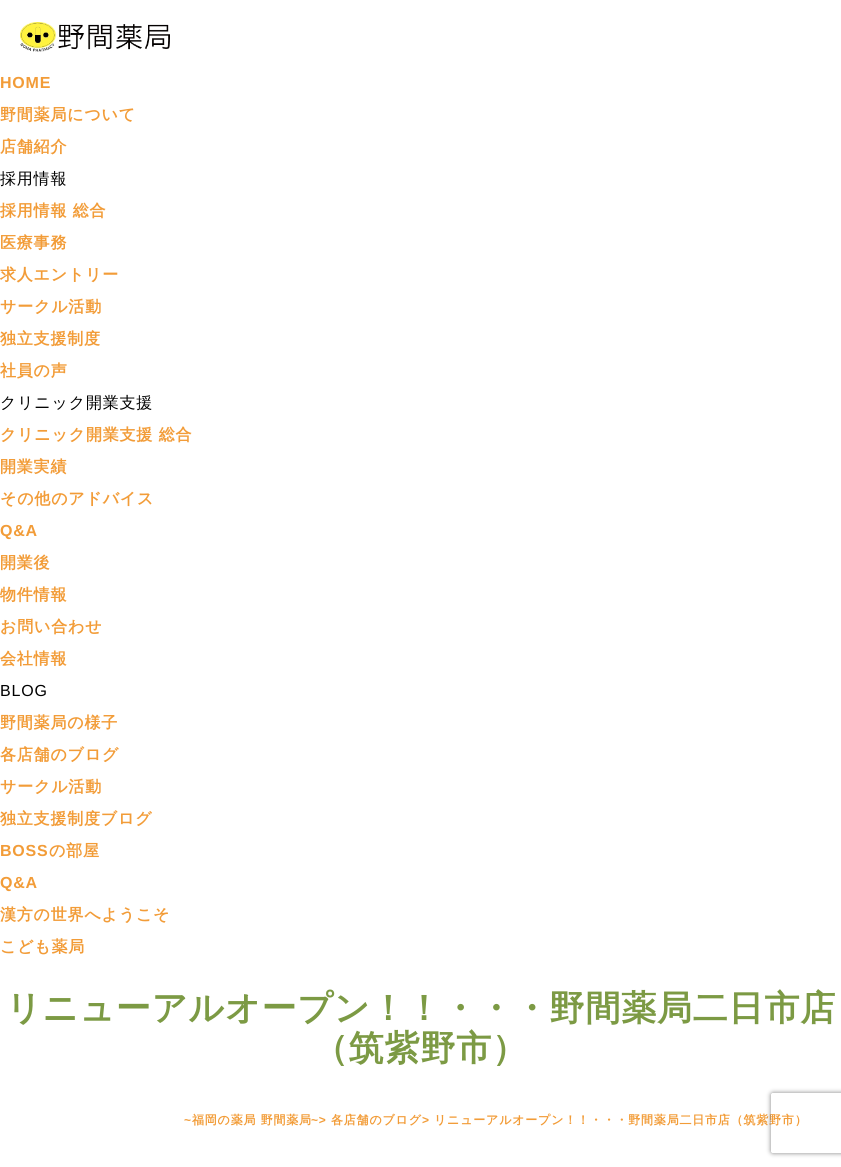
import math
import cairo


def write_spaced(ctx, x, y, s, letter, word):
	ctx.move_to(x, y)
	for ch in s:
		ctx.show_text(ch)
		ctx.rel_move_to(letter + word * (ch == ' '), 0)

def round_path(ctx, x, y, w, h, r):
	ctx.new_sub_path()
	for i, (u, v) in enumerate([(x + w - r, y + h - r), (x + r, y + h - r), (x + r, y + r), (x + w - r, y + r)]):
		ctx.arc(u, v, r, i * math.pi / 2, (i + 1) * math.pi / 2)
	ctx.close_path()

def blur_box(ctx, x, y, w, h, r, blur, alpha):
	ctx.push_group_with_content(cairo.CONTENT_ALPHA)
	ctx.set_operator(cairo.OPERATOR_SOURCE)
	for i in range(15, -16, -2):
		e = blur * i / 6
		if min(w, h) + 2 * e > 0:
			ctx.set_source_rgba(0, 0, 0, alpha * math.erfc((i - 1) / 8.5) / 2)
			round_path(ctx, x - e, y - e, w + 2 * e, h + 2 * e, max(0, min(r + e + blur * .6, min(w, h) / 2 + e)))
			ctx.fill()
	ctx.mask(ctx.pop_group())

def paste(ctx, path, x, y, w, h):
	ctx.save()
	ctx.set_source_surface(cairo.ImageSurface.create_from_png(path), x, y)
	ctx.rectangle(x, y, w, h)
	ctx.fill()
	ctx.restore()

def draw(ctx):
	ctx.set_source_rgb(1, 1, 1)
	ctx.paint()
	paste(ctx, 'media/1.png', 20, 22, 150, 30)
	ctx.select_font_face('Liberation Sans', cairo.FONT_SLANT_NORMAL, cairo.FONT_WEIGHT_BOLD)
	ctx.set_font_size(16)
	ctx.set_source_rgb(0.949, 0.612, 0.22)
	write_spaced(ctx, 0, 88, 'HOME', 0.8, 0)
	ctx.select_font_face('WenQuanYi Zen Hei', cairo.FONT_SLANT_NORMAL, cairo.FONT_WEIGHT_BOLD)
	write_spaced(ctx, 0, 120, '野間薬局について', 0.8, 0)
	write_spaced(ctx, 0, 152, '店舗紹介', 0.8, 0)
	ctx.select_font_face('WenQuanYi Zen Hei Medium')
	ctx.set_source_rgb(0, 0, 0)
	write_spaced(ctx, 0, 184, '採用情報', 0.8, 0)
	ctx.select_font_face('WenQuanYi Zen Hei', cairo.FONT_SLANT_NORMAL, cairo.FONT_WEIGHT_BOLD)
	ctx.set_source_rgb(0.949, 0.612, 0.22)
	for x, y, s in [
		(0, 216, '採用情報 総合'),
		(0, 248, '医療事務'),
		(0, 280, '求人エントリー'),
		(0, 312, 'サークル活動'),
		(0, 344, '独立支援制度'),
		(0, 376, '社員の声'),
	]:
		write_spaced(ctx, x, y, s, 0.8, 0)
	ctx.select_font_face('WenQuanYi Zen Hei Medium')
	ctx.set_source_rgb(0, 0, 0)
	write_spaced(ctx, 0, 408, 'クリニック開業支援', 0.8, 0)
	ctx.select_font_face('WenQuanYi Zen Hei', cairo.FONT_SLANT_NORMAL, cairo.FONT_WEIGHT_BOLD)
	ctx.set_source_rgb(0.949, 0.612, 0.22)
	for x, y, s in [
		(0, 440, 'クリニック開業支援 総合'),
		(0, 472, '開業実績'),
		(0, 504, 'その他のアドバイス'),
	]:
		write_spaced(ctx, x, y, s, 0.8, 0)
	ctx.select_font_face('Liberation Sans', cairo.FONT_SLANT_NORMAL, cairo.FONT_WEIGHT_BOLD)
	write_spaced(ctx, 0, 536, 'Q&A', 0.8, 0)
	ctx.select_font_face('WenQuanYi Zen Hei', cairo.FONT_SLANT_NORMAL, cairo.FONT_WEIGHT_BOLD)
	for x, y, s in [
		(0, 568, '開業後'),
		(0, 600, '物件情報'),
		(0, 632, 'お問い合わせ'),
		(0, 664, '会社情報'),
	]:
		write_spaced(ctx, x, y, s, 0.8, 0)
	ctx.select_font_face('Liberation Sans')
	ctx.set_source_rgb(0, 0, 0)
	write_spaced(ctx, 0, 696, 'BLOG', 0.8, 0)
	ctx.select_font_face('WenQuanYi Zen Hei', cairo.FONT_SLANT_NORMAL, cairo.FONT_WEIGHT_BOLD)
	ctx.set_source_rgb(0.949, 0.612, 0.22)
	for x, y, s in [
		(0, 728, '野間薬局の様子'),
		(0, 760, '各店舗のブログ'),
		(0, 792, 'サークル活動'),
		(0, 824, '独立支援制度ブログ'),
	]:
		write_spaced(ctx, x, y, s, 0.8, 0)
	ctx.select_font_face('Liberation Sans', cairo.FONT_SLANT_NORMAL, cairo.FONT_WEIGHT_BOLD)
	write_spaced(ctx, 0, 856, 'BOSS', 0.8, 0)
	ctx.select_font_face('WenQuanYi Zen Hei', cairo.FONT_SLANT_NORMAL, cairo.FONT_WEIGHT_BOLD)
	write_spaced(ctx, 49, 856, 'の部屋', 0.8, 0)
	ctx.select_font_face('Liberation Sans', cairo.FONT_SLANT_NORMAL, cairo.FONT_WEIGHT_BOLD)
	write_spaced(ctx, 0, 888, 'Q&A', 0.8, 0)
	ctx.select_font_face('WenQuanYi Zen Hei', cairo.FONT_SLANT_NORMAL, cairo.FONT_WEIGHT_BOLD)
	write_spaced(ctx, 0, 920, '漢方の世界へようこそ', 0.8, 0)
	write_spaced(ctx, 0, 952, 'こども薬局', 0.8, 0)
	ctx.set_font_size(35)
	ctx.set_source_rgb(0.486, 0.604, 0.267)
	write_spaced(ctx, 6, 1020, 'リニューアルオープン！！・・・野間薬局二日市店', 0.8, 0)
	write_spaced(ctx, 313, 1060, '（筑紫野市）', 0.8, 0)
	ctx.select_font_face('Liberation Sans', cairo.FONT_SLANT_NORMAL, cairo.FONT_WEIGHT_BOLD)
	ctx.set_font_size(12)
	ctx.set_source_rgb(0.949, 0.612, 0.22)
	write_spaced(ctx, 184, 1124, '~', 0.8, 0)
	ctx.select_font_face('WenQuanYi Zen Hei', cairo.FONT_SLANT_NORMAL, cairo.FONT_WEIGHT_BOLD)
	write_spaced(ctx, 192, 1124, '福岡の薬局 野間薬局', 0.8, 0)
	ctx.select_font_face('Liberation Sans', cairo.FONT_SLANT_NORMAL, cairo.FONT_WEIGHT_BOLD)
	write_spaced(ctx, 311, 1124, '~>', 0.8, 0)
	ctx.select_font_face('WenQuanYi Zen Hei', cairo.FONT_SLANT_NORMAL, cairo.FONT_WEIGHT_BOLD)
	write_spaced(ctx, 331, 1124, '各店舗のブログ', 0.8, 0)
	ctx.select_font_face('Liberation Sans', cairo.FONT_SLANT_NORMAL, cairo.FONT_WEIGHT_BOLD)
	write_spaced(ctx, 422, 1124, '>', 0.8, 0)
	ctx.select_font_face('WenQuanYi Zen Hei', cairo.FONT_SLANT_NORMAL, cairo.FONT_WEIGHT_BOLD)
	write_spaced(ctx, 434, 1124, 'リニューアルオープン！！・・・野間薬局二日市店（筑紫野市）', 0.8, 0)
	ctx.save()
	ctx.set_fill_rule(cairo.FILL_RULE_EVEN_ODD)
	ctx.new_path()
	ctx.move_to(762, 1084)
	ctx.line_to(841, 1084)
	ctx.line_to(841, 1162)
	ctx.line_to(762, 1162)
	ctx.close_path()
	ctx.move_to(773, 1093)
	ctx.line_to(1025, 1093)
	ctx.curve_to(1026, 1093, 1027, 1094, 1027, 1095)
	ctx.line_to(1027, 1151)
	ctx.curve_to(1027, 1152, 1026, 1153, 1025, 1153)
	ctx.line_to(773, 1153)
	ctx.curve_to(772, 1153, 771, 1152, 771, 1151)
	ctx.line_to(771, 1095)
	ctx.curve_to(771, 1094, 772, 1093, 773, 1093)
	ctx.close_path()
	ctx.clip()
	ctx.set_source_rgb(0.502, 0.502, 0.502)
	blur_box(ctx, 771, 1093, 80, 60, 2, 2.5, 1)
	ctx.restore()


surface = cairo.ImageSurface(cairo.FORMAT_RGB24, 841, 1167)
ctx = cairo.Context(surface)
options = cairo.FontOptions()
options.set_hint_metrics(cairo.HINT_METRICS_OFF)
options.set_hint_style(cairo.HINT_STYLE_NONE)
ctx.set_font_options(options)
ctx.set_miter_limit(4)
draw(ctx)
surface.write_to_png('image.png')
